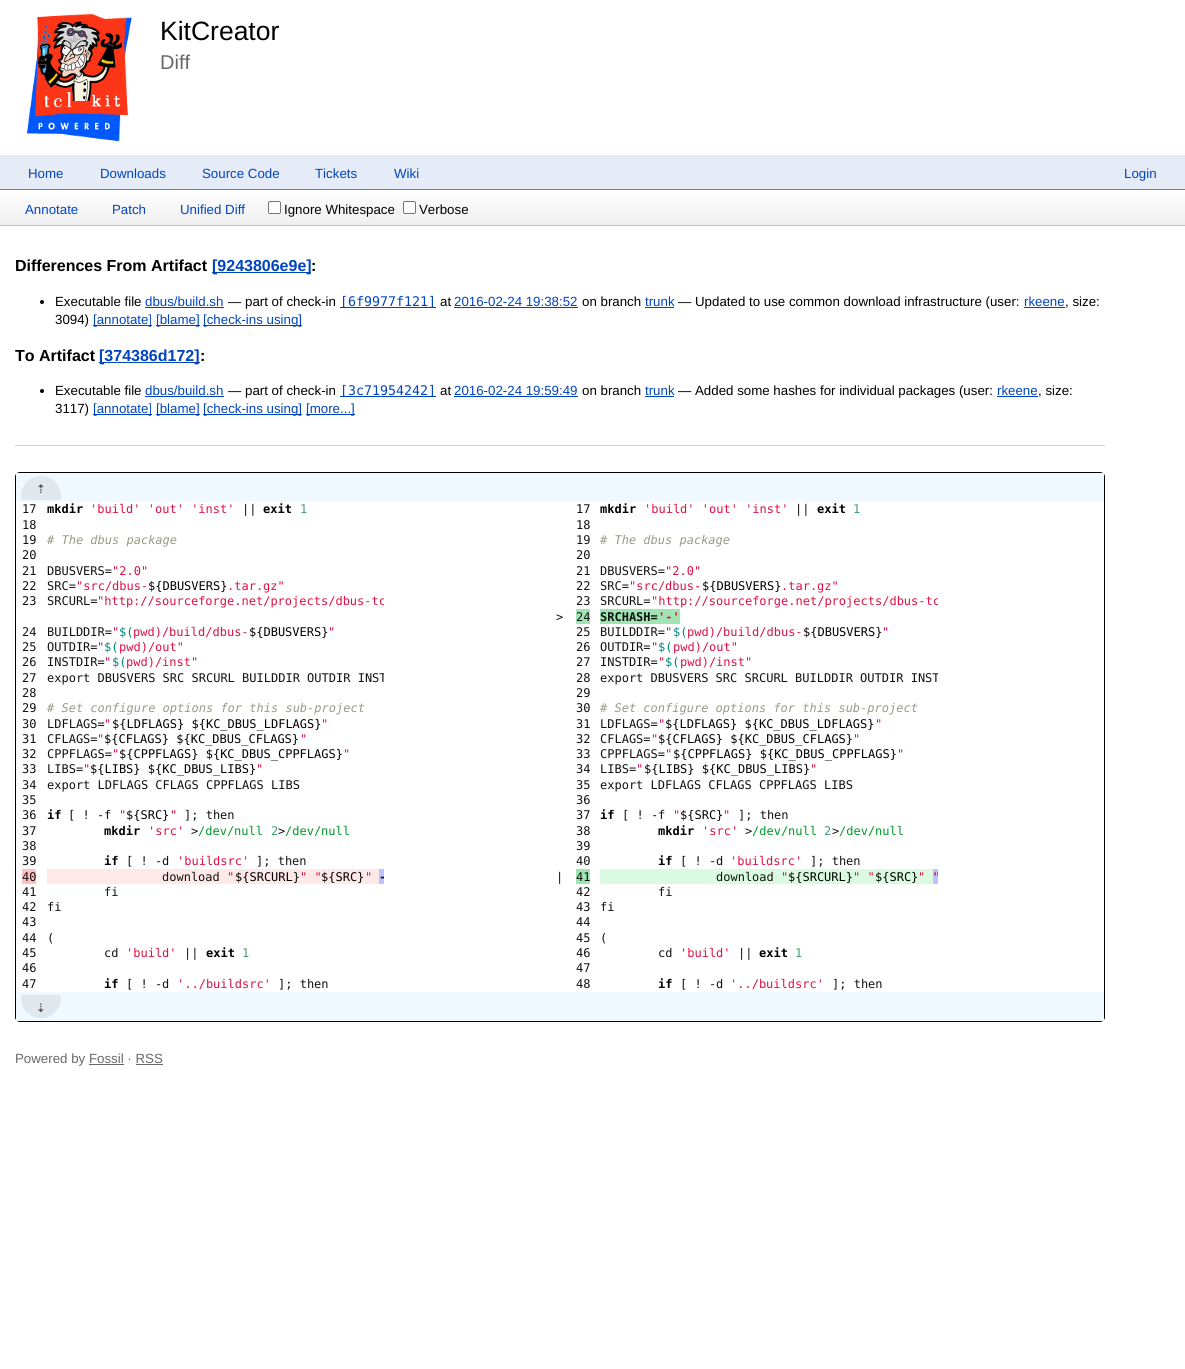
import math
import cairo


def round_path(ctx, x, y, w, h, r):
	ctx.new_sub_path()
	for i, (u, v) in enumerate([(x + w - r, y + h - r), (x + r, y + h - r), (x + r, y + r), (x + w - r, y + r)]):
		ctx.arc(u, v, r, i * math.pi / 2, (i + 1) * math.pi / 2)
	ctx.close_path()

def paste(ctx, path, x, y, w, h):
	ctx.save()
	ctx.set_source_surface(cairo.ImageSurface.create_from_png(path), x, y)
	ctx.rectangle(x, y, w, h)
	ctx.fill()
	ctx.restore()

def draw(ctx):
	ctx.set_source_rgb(1, 1, 1)
	ctx.paint()
	paste(ctx, 'media/1.png', 27, 13, 105, 128)
	ctx.select_font_face('Liberation Sans')
	ctx.set_font_size(26.5)
	ctx.set_source_rgb(0, 0, 0)
	ctx.move_to(160, 40)
	ctx.show_text('KitCreator')
	ctx.set_font_size(20)
	ctx.set_source_rgb(0.4, 0.408, 0.4)
	ctx.move_to(160, 69)
	ctx.show_text('Diff')
	ctx.set_source_rgb(0.902, 0.922, 0.965)
	ctx.rectangle(0, 155, 1185, 34)
	ctx.fill()
	ctx.set_source_rgb(0.349, 0.502, 0.8)
	ctx.rectangle(0, 189, 1185, 1)
	ctx.fill()
	ctx.set_font_size(13.3)
	ctx.set_source_rgb(0, 0.267, 0.753)
	for x, y, s in [
		(28, 178, 'Home'),
		(100, 178, 'Downloads'),
		(202, 178, 'Source Code'),
		(315, 178, 'Tickets'),
		(394, 178, 'Wiki'),
		(1124, 178, 'Login'),
	]:
		ctx.move_to(x, y)
		ctx.show_text(s)
	gradient = cairo.LinearGradient(0, 225, 0, 190)
	gradient.add_color_stop_rgba(0, 0.933, 0.933, 0.933, 1)
	gradient.add_color_stop_rgba(1, 1, 1, 1, 1)
	ctx.set_source(gradient)
	ctx.rectangle(0, 195, 1185, 30)
	ctx.fill()
	ctx.set_source_rgb(0.753, 0.753, 0.753)
	ctx.rectangle(0, 225, 1185, 1)
	ctx.fill()
	ctx.set_source_rgb(0, 0.267, 0.753)
	for x, y, s in [
		(25, 214, 'Annotate'),
		(112, 214, 'Patch'),
		(180, 214, 'Unified Diff'),
	]:
		ctx.move_to(x, y)
		ctx.show_text(s)
	ctx.set_source_rgb(1, 1, 1)
	round_path(ctx, 268.5, 201.5, 12, 12, 1.5)
	ctx.fill_preserve()
	ctx.set_source_rgb(0.463, 0.463, 0.463)
	ctx.set_line_width(1)
	ctx.stroke()
	ctx.set_source_rgb(0, 0, 0)
	ctx.move_to(284, 214)
	ctx.show_text('Ignore Whitespace')
	ctx.set_source_rgb(1, 1, 1)
	round_path(ctx, 403.5, 201.5, 12, 12, 1.5)
	ctx.fill_preserve()
	ctx.set_source_rgb(0.463, 0.463, 0.463)
	ctx.stroke()
	ctx.set_source_rgb(0, 0, 0)
	ctx.move_to(419, 214)
	ctx.show_text('Verbose')
	ctx.select_font_face('Liberation Sans', cairo.FONT_SLANT_NORMAL, cairo.FONT_WEIGHT_BOLD)
	ctx.set_font_size(16)
	ctx.move_to(15, 271)
	ctx.show_text('Differences From Artifact')
	ctx.set_source_rgb(0, 0.267, 0.753)
	ctx.rectangle(212, 272, 99, 1)
	ctx.fill()
	ctx.move_to(212, 271)
	ctx.show_text('[9243806e9e]')
	ctx.set_source_rgb(0, 0, 0)
	ctx.move_to(311, 271)
	ctx.show_text(':')
	ctx.new_path()
	ctx.arc(42, 302, 2, 0, 2 * math.pi)
	ctx.fill()
	ctx.select_font_face('Liberation Sans')
	ctx.set_font_size(13.3)
	ctx.move_to(55, 306)
	ctx.show_text('Executable file')
	ctx.set_source_rgb(0, 0.267, 0.753)
	ctx.move_to(145, 306)
	ctx.show_text('dbus/build.sh')
	ctx.rectangle(145, 307, 79, 1)
	ctx.fill()
	ctx.set_source_rgb(0, 0, 0)
	ctx.move_to(228, 306)
	ctx.show_text('— part of check-in')
	ctx.set_source_rgb(0, 0.267, 0.753)
	ctx.rectangle(340, 307, 96, 1)
	ctx.fill()
	ctx.select_font_face('DejaVu Sans Mono')
	ctx.move_to(340, 306)
	ctx.show_text('[6f9977f121]')
	ctx.select_font_face('Liberation Sans')
	ctx.set_source_rgb(0, 0, 0)
	ctx.move_to(440, 306)
	ctx.show_text('at')
	ctx.set_source_rgb(0, 0.267, 0.753)
	ctx.move_to(454, 306)
	ctx.show_text('2016-02-24 19:38:52')
	ctx.rectangle(454, 307, 124, 1)
	ctx.fill()
	ctx.set_source_rgb(0, 0, 0)
	ctx.move_to(582, 306)
	ctx.show_text('on branch')
	ctx.set_source_rgb(0, 0.267, 0.753)
	ctx.move_to(645, 306)
	ctx.show_text('trunk')
	ctx.rectangle(645, 307, 29, 1)
	ctx.fill()
	ctx.set_source_rgb(0, 0, 0)
	ctx.move_to(678, 306)
	ctx.show_text('— Updated to use common download infrastructure (user:')
	ctx.set_source_rgb(0, 0.267, 0.753)
	ctx.move_to(1024, 306)
	ctx.show_text('rkeene')
	ctx.rectangle(1024, 307, 41, 1)
	ctx.fill()
	ctx.set_source_rgb(0, 0, 0)
	ctx.move_to(1065, 306)
	ctx.show_text(', size:')
	ctx.move_to(55, 324)
	ctx.show_text('3094)')
	ctx.set_source_rgb(0, 0.267, 0.753)
	ctx.rectangle(93, 325, 59, 1)
	ctx.fill()
	ctx.move_to(93, 324)
	ctx.show_text('[annotate]')
	ctx.rectangle(156, 325, 44, 1)
	ctx.fill()
	ctx.move_to(156, 324)
	ctx.show_text('[blame]')
	ctx.rectangle(203, 325, 99, 1)
	ctx.fill()
	ctx.move_to(203, 324)
	ctx.show_text('[check-ins using]')
	ctx.select_font_face('Liberation Sans', cairo.FONT_SLANT_NORMAL, cairo.FONT_WEIGHT_BOLD)
	ctx.set_font_size(16)
	ctx.set_source_rgb(0, 0, 0)
	ctx.move_to(15, 361)
	ctx.show_text('To Artifact')
	ctx.set_source_rgb(0, 0.267, 0.753)
	ctx.rectangle(99, 362, 101, 1)
	ctx.fill()
	ctx.move_to(99, 361)
	ctx.show_text('[374386d172]')
	ctx.set_source_rgb(0, 0, 0)
	ctx.move_to(200, 361)
	ctx.show_text(':')
	ctx.new_path()
	ctx.arc(42, 391, 2, 0, 2 * math.pi)
	ctx.fill()
	ctx.select_font_face('Liberation Sans')
	ctx.set_font_size(13.3)
	ctx.move_to(55, 395)
	ctx.show_text('Executable file')
	ctx.set_source_rgb(0, 0.267, 0.753)
	ctx.move_to(145, 395)
	ctx.show_text('dbus/build.sh')
	ctx.rectangle(145, 396, 79, 1)
	ctx.fill()
	ctx.set_source_rgb(0, 0, 0)
	ctx.move_to(228, 395)
	ctx.show_text('— part of check-in')
	ctx.set_source_rgb(0, 0.267, 0.753)
	ctx.rectangle(340, 396, 96, 1)
	ctx.fill()
	ctx.select_font_face('DejaVu Sans Mono')
	ctx.move_to(340, 395)
	ctx.show_text('[3c71954242]')
	ctx.select_font_face('Liberation Sans')
	ctx.set_source_rgb(0, 0, 0)
	ctx.move_to(440, 395)
	ctx.show_text('at')
	ctx.set_source_rgb(0, 0.267, 0.753)
	ctx.move_to(454, 395)
	ctx.show_text('2016-02-24 19:59:49')
	ctx.rectangle(454, 396, 124, 1)
	ctx.fill()
	ctx.set_source_rgb(0, 0, 0)
	ctx.move_to(582, 395)
	ctx.show_text('on branch')
	ctx.set_source_rgb(0, 0.267, 0.753)
	ctx.move_to(645, 395)
	ctx.show_text('trunk')
	ctx.rectangle(645, 396, 29, 1)
	ctx.fill()
	ctx.set_source_rgb(0, 0, 0)
	ctx.move_to(678, 395)
	ctx.show_text('— Added some hashes for individual packages (user:')
	ctx.set_source_rgb(0, 0.267, 0.753)
	ctx.move_to(997, 395)
	ctx.show_text('rkeene')
	ctx.rectangle(997, 396, 41, 1)
	ctx.fill()
	ctx.set_source_rgb(0, 0, 0)
	ctx.move_to(1038, 395)
	ctx.show_text(', size:')
	ctx.move_to(55, 413)
	ctx.show_text('3117)')
	ctx.set_source_rgb(0, 0.267, 0.753)
	ctx.rectangle(93, 414, 59, 1)
	ctx.fill()
	ctx.move_to(93, 413)
	ctx.show_text('[annotate]')
	ctx.rectangle(156, 414, 44, 1)
	ctx.fill()
	ctx.move_to(156, 413)
	ctx.show_text('[blame]')
	ctx.rectangle(203, 414, 99, 1)
	ctx.fill()
	ctx.move_to(203, 413)
	ctx.show_text('[check-ins using]')
	ctx.rectangle(306, 414, 49, 1)
	ctx.fill()
	ctx.move_to(306, 413)
	ctx.show_text('[more...]')
	ctx.set_source_rgb(0.8, 0.831, 0.8)
	ctx.rectangle(15, 445, 1090, 1)
	ctx.fill()
	round_path(ctx, 15.5, 472.5, 1089, 549, 4.5)
	ctx.set_source_rgb(0, 0, 0)
	ctx.stroke()
	ctx.set_source_rgb(0.941, 0.973, 1)
	ctx.rectangle(16, 473, 1088, 29)
	ctx.fill()
	ctx.set_source_rgb(0.878, 0.906, 0.929)
	ctx.new_path()
	ctx.move_to(41, 476)
	ctx.curve_to(52, 476, 61, 485, 61, 496)
	ctx.line_to(61, 498.5)
	ctx.curve_to(61, 499.5, 60.5, 500, 59.5, 500)
	ctx.line_to(22.5, 500)
	ctx.curve_to(21.5, 500, 21, 499.5, 21, 498.5)
	ctx.line_to(21, 496)
	ctx.curve_to(21, 485, 30, 476, 41, 476)
	ctx.close_path()
	ctx.fill()
	ctx.select_font_face('DejaVu Sans Mono')
	ctx.set_font_size(16)
	ctx.set_source_rgb(0.282, 0.29, 0.302)
	ctx.move_to(36, 493)
	ctx.show_text('⇡')
	ctx.set_font_size(12)
	ctx.set_source_rgb(0.067, 0.067, 0.067)
	for x, y, s in [
		(22, 513, '17'),
		(22, 529, '18'),
		(22, 544, '19'),
		(22, 559, '20'),
		(22, 575, '21'),
		(22, 590, '22'),
		(22, 605, '23'),
		(22, 636, '24'),
		(22, 651, '25'),
		(22, 666, '26'),
		(22, 682, '27'),
		(22, 697, '28'),
		(22, 712, '29'),
		(22, 728, '30'),
		(22, 743, '31'),
		(22, 758, '32'),
		(22, 773, '33'),
		(22, 789, '34'),
		(22, 804, '35'),
		(22, 819, '36'),
		(22, 835, '37'),
		(22, 850, '38'),
		(22, 865, '39'),
	]:
		ctx.move_to(x, y)
		ctx.show_text(s)
	ctx.set_source_rgb(1, 0.753, 0.753)
	ctx.rectangle(22, 869, 14, 15)
	ctx.fill()
	ctx.set_source_rgb(0.067, 0.067, 0.067)
	for x, y, s in [
		(22, 881, '40'),
		(22, 896, '41'),
		(22, 911, '42'),
		(22, 926, '43'),
		(22, 942, '44'),
		(22, 957, '45'),
		(22, 972, '46'),
		(22, 988, '47'),
	]:
		ctx.move_to(x, y)
		ctx.show_text(s)
	ctx.select_font_face('DejaVu Sans Mono', cairo.FONT_SLANT_NORMAL, cairo.FONT_WEIGHT_BOLD)
	ctx.set_source_rgb(0, 0, 0)
	ctx.move_to(47, 513)
	ctx.show_text('mkdir')
	ctx.select_font_face('DejaVu Sans Mono')
	ctx.set_source_rgb(0.867, 0.067, 0.267)
	ctx.move_to(90, 513)
	ctx.show_text('\'build\' \'out\' \'inst\'')
	ctx.set_source_rgb(0.067, 0.067, 0.067)
	ctx.move_to(242, 513)
	ctx.show_text('||')
	ctx.select_font_face('DejaVu Sans Mono', cairo.FONT_SLANT_NORMAL, cairo.FONT_WEIGHT_BOLD)
	ctx.set_source_rgb(0, 0, 0)
	ctx.move_to(263, 513)
	ctx.show_text('exit')
	ctx.select_font_face('DejaVu Sans Mono')
	ctx.set_source_rgb(0.251, 0.627, 0.439)
	ctx.move_to(300, 513)
	ctx.show_text('1')
	ctx.select_font_face('DejaVu Sans Mono', cairo.FONT_SLANT_ITALIC)
	ctx.set_source_rgb(0.6, 0.6, 0.533)
	ctx.move_to(47, 544)
	ctx.show_text('# The dbus package')
	ctx.select_font_face('DejaVu Sans Mono')
	ctx.set_source_rgb(0.067, 0.067, 0.067)
	ctx.move_to(47, 575)
	ctx.show_text('DBUSVERS=')
	ctx.set_source_rgb(0.867, 0.067, 0.267)
	ctx.move_to(112, 575)
	ctx.show_text('"2.0"')
	ctx.set_source_rgb(0.067, 0.067, 0.067)
	ctx.move_to(47, 590)
	ctx.show_text('SRC=')
	ctx.set_source_rgb(0.867, 0.067, 0.267)
	ctx.move_to(76, 590)
	ctx.show_text('"src/dbus-')
	ctx.set_source_rgb(0, 0, 0)
	ctx.move_to(148, 590)
	ctx.show_text('${DBUSVERS}')
	ctx.set_source_rgb(0.867, 0.067, 0.267)
	ctx.move_to(227, 590)
	ctx.show_text('.tar.gz"')
	ctx.set_source_rgb(0.067, 0.067, 0.067)
	ctx.move_to(47, 605)
	ctx.show_text('SRCURL=')
	ctx.save()
	ctx.rectangle(41, 502, 343, 490)
	ctx.clip()
	ctx.set_source_rgb(0.867, 0.067, 0.267)
	ctx.move_to(97, 605)
	ctx.show_text('"http://sourceforge.net/projects/dbus-tc')
	ctx.restore()
	ctx.move_to(47, 636)
	ctx.show_text('BUILDDIR=')
	ctx.set_source_rgb(0.867, 0.067, 0.267)
	ctx.move_to(112, 636)
	ctx.show_text('"')
	ctx.set_source_rgb(0, 0.502, 0.502)
	ctx.move_to(119, 636)
	ctx.show_text('$(')
	ctx.set_source_rgb(0.867, 0.067, 0.267)
	ctx.move_to(133, 636)
	ctx.show_text('pwd)/build/dbus-')
	ctx.set_source_rgb(0, 0, 0)
	ctx.move_to(249, 636)
	ctx.show_text('${DBUSVERS}')
	ctx.set_source_rgb(0.867, 0.067, 0.267)
	ctx.move_to(328, 636)
	ctx.show_text('"')
	ctx.set_source_rgb(0.067, 0.067, 0.067)
	ctx.move_to(47, 651)
	ctx.show_text('OUTDIR=')
	ctx.set_source_rgb(0.867, 0.067, 0.267)
	ctx.move_to(97, 651)
	ctx.show_text('"')
	ctx.set_source_rgb(0, 0.502, 0.502)
	ctx.move_to(104, 651)
	ctx.show_text('$(')
	ctx.set_source_rgb(0.867, 0.067, 0.267)
	ctx.move_to(119, 651)
	ctx.show_text('pwd)/out"')
	ctx.set_source_rgb(0.067, 0.067, 0.067)
	ctx.move_to(47, 666)
	ctx.show_text('INSTDIR=')
	ctx.set_source_rgb(0.867, 0.067, 0.267)
	ctx.move_to(104, 666)
	ctx.show_text('"')
	ctx.set_source_rgb(0, 0.502, 0.502)
	ctx.move_to(112, 666)
	ctx.show_text('$(')
	ctx.set_source_rgb(0.867, 0.067, 0.267)
	ctx.move_to(126, 666)
	ctx.show_text('pwd)/inst"')
	ctx.save()
	ctx.rectangle(41, 502, 343, 490)
	ctx.clip()
	ctx.set_source_rgb(0.067, 0.067, 0.067)
	ctx.move_to(47, 682)
	ctx.show_text('export DBUSVERS SRC SRCURL BUILDDIR OUTDIR INST')
	ctx.restore()
	ctx.select_font_face('DejaVu Sans Mono', cairo.FONT_SLANT_ITALIC)
	ctx.set_source_rgb(0.6, 0.6, 0.533)
	ctx.move_to(47, 712)
	ctx.show_text('# Set configure options for this sub-project')
	ctx.select_font_face('DejaVu Sans Mono')
	ctx.set_source_rgb(0.067, 0.067, 0.067)
	ctx.move_to(47, 728)
	ctx.show_text('LDFLAGS=')
	ctx.set_source_rgb(0.867, 0.067, 0.267)
	ctx.move_to(104, 728)
	ctx.show_text('"')
	ctx.set_source_rgb(0, 0, 0)
	ctx.move_to(112, 728)
	ctx.show_text('${LDFLAGS} ${KC_DBUS_LDFLAGS}')
	ctx.set_source_rgb(0.867, 0.067, 0.267)
	ctx.move_to(321, 728)
	ctx.show_text('"')
	ctx.set_source_rgb(0.067, 0.067, 0.067)
	ctx.move_to(47, 743)
	ctx.show_text('CFLAGS=')
	ctx.set_source_rgb(0.867, 0.067, 0.267)
	ctx.move_to(97, 743)
	ctx.show_text('"')
	ctx.set_source_rgb(0, 0, 0)
	ctx.move_to(104, 743)
	ctx.show_text('${CFLAGS} ${KC_DBUS_CFLAGS}')
	ctx.set_source_rgb(0.867, 0.067, 0.267)
	ctx.move_to(300, 743)
	ctx.show_text('"')
	ctx.set_source_rgb(0.067, 0.067, 0.067)
	ctx.move_to(47, 758)
	ctx.show_text('CPPFLAGS=')
	ctx.set_source_rgb(0.867, 0.067, 0.267)
	ctx.move_to(112, 758)
	ctx.show_text('"')
	ctx.set_source_rgb(0, 0, 0)
	ctx.move_to(119, 758)
	ctx.show_text('${CPPFLAGS} ${KC_DBUS_CPPFLAGS}')
	ctx.set_source_rgb(0.867, 0.067, 0.267)
	ctx.move_to(343, 758)
	ctx.show_text('"')
	ctx.set_source_rgb(0.067, 0.067, 0.067)
	ctx.move_to(47, 773)
	ctx.show_text('LIBS=')
	ctx.set_source_rgb(0.867, 0.067, 0.267)
	ctx.move_to(83, 773)
	ctx.show_text('"')
	ctx.set_source_rgb(0, 0, 0)
	ctx.move_to(90, 773)
	ctx.show_text('${LIBS} ${KC_DBUS_LIBS}')
	ctx.set_source_rgb(0.867, 0.067, 0.267)
	ctx.move_to(256, 773)
	ctx.show_text('"')
	ctx.set_source_rgb(0.067, 0.067, 0.067)
	ctx.move_to(47, 789)
	ctx.show_text('export LDFLAGS CFLAGS CPPFLAGS LIBS')
	ctx.select_font_face('DejaVu Sans Mono', cairo.FONT_SLANT_NORMAL, cairo.FONT_WEIGHT_BOLD)
	ctx.set_source_rgb(0, 0, 0)
	ctx.move_to(47, 819)
	ctx.show_text('if')
	ctx.select_font_face('DejaVu Sans Mono')
	ctx.set_source_rgb(0.067, 0.067, 0.067)
	ctx.move_to(68, 819)
	ctx.show_text('[ ! -f')
	ctx.set_source_rgb(0.867, 0.067, 0.267)
	ctx.move_to(119, 819)
	ctx.show_text('"')
	ctx.set_source_rgb(0, 0, 0)
	ctx.move_to(126, 819)
	ctx.show_text('${SRC}')
	ctx.set_source_rgb(0.867, 0.067, 0.267)
	ctx.move_to(170, 819)
	ctx.show_text('"')
	ctx.set_source_rgb(0.067, 0.067, 0.067)
	ctx.move_to(184, 819)
	ctx.show_text(']; then')
	ctx.select_font_face('DejaVu Sans Mono', cairo.FONT_SLANT_NORMAL, cairo.FONT_WEIGHT_BOLD)
	ctx.set_source_rgb(0, 0, 0)
	ctx.move_to(104, 835)
	ctx.show_text('mkdir')
	ctx.select_font_face('DejaVu Sans Mono')
	ctx.set_source_rgb(0.867, 0.067, 0.267)
	ctx.move_to(148, 835)
	ctx.show_text('\'src\'')
	ctx.set_source_rgb(0.067, 0.067, 0.067)
	ctx.move_to(191, 835)
	ctx.show_text('>')
	ctx.set_source_rgb(0, 0.6, 0.149)
	ctx.move_to(198, 835)
	ctx.show_text('/dev/null')
	ctx.set_source_rgb(0.251, 0.627, 0.439)
	ctx.move_to(271, 835)
	ctx.show_text('2')
	ctx.set_source_rgb(0.067, 0.067, 0.067)
	ctx.move_to(278, 835)
	ctx.show_text('>')
	ctx.set_source_rgb(0, 0.6, 0.149)
	ctx.move_to(285, 835)
	ctx.show_text('/dev/null')
	ctx.select_font_face('DejaVu Sans Mono', cairo.FONT_SLANT_NORMAL, cairo.FONT_WEIGHT_BOLD)
	ctx.set_source_rgb(0, 0, 0)
	ctx.move_to(104, 865)
	ctx.show_text('if')
	ctx.select_font_face('DejaVu Sans Mono')
	ctx.set_source_rgb(0.067, 0.067, 0.067)
	ctx.move_to(126, 865)
	ctx.show_text('[ ! -d')
	ctx.set_source_rgb(0.867, 0.067, 0.267)
	ctx.move_to(177, 865)
	ctx.show_text('\'buildsrc\'')
	ctx.set_source_rgb(0.067, 0.067, 0.067)
	ctx.move_to(256, 865)
	ctx.show_text(']; then')
	ctx.set_source_rgb(1, 0.91, 0.91)
	ctx.rectangle(47, 869, 332, 15)
	ctx.fill()
	ctx.set_source_rgb(0.067, 0.067, 0.067)
	ctx.move_to(162, 881)
	ctx.show_text('download')
	ctx.set_source_rgb(0.867, 0.067, 0.267)
	ctx.move_to(227, 881)
	ctx.show_text('"')
	ctx.set_source_rgb(0, 0, 0)
	ctx.move_to(235, 881)
	ctx.show_text('${SRCURL}')
	ctx.set_source_rgb(0.867, 0.067, 0.267)
	ctx.move_to(300, 881)
	ctx.show_text('" "')
	ctx.set_source_rgb(0, 0, 0)
	ctx.move_to(321, 881)
	ctx.show_text('${SRC}')
	ctx.set_source_rgb(0.867, 0.067, 0.267)
	ctx.move_to(365, 881)
	ctx.show_text('"')
	ctx.set_source_rgb(0.753, 0.753, 1)
	ctx.rectangle(379, 869, 5, 15)
	ctx.fill()
	ctx.save()
	ctx.rectangle(41, 502, 343, 490)
	ctx.clip()
	ctx.select_font_face('DejaVu Sans Mono', cairo.FONT_SLANT_NORMAL, cairo.FONT_WEIGHT_BOLD)
	ctx.set_source_rgb(0.067, 0.067, 0.067)
	ctx.move_to(379, 881)
	ctx.show_text('-')
	ctx.restore()
	ctx.set_source_rgb(0.067, 0.067, 0.067)
	for x, y, s in [
		(104, 896, 'fi'),
		(47, 911, 'fi'),
		(47, 942, '('),
		(104, 957, 'cd'),
	]:
		ctx.move_to(x, y)
		ctx.show_text(s)
	ctx.set_source_rgb(0.867, 0.067, 0.267)
	ctx.move_to(126, 957)
	ctx.show_text('\'build\'')
	ctx.set_source_rgb(0.067, 0.067, 0.067)
	ctx.move_to(184, 957)
	ctx.show_text('||')
	ctx.select_font_face('DejaVu Sans Mono', cairo.FONT_SLANT_NORMAL, cairo.FONT_WEIGHT_BOLD)
	ctx.set_source_rgb(0, 0, 0)
	ctx.move_to(206, 957)
	ctx.show_text('exit')
	ctx.select_font_face('DejaVu Sans Mono')
	ctx.set_source_rgb(0.251, 0.627, 0.439)
	ctx.move_to(242, 957)
	ctx.show_text('1')
	ctx.select_font_face('DejaVu Sans Mono', cairo.FONT_SLANT_NORMAL, cairo.FONT_WEIGHT_BOLD)
	ctx.set_source_rgb(0, 0, 0)
	ctx.move_to(104, 988)
	ctx.show_text('if')
	ctx.select_font_face('DejaVu Sans Mono')
	ctx.set_source_rgb(0.067, 0.067, 0.067)
	ctx.move_to(126, 988)
	ctx.show_text('[ ! -d')
	ctx.set_source_rgb(0.867, 0.067, 0.267)
	ctx.move_to(177, 988)
	ctx.show_text('\'../buildsrc\'')
	ctx.set_source_rgb(0.067, 0.067, 0.067)
	for x, y, s in [
		(278, 988, ']; then'),
		(556, 621, '>'),
		(556, 881, '|'),
		(576, 513, '17'),
		(576, 529, '18'),
		(576, 544, '19'),
		(576, 559, '20'),
		(576, 575, '21'),
		(576, 590, '22'),
		(576, 605, '23'),
	]:
		ctx.move_to(x, y)
		ctx.show_text(s)
	ctx.set_source_rgb(0.627, 0.894, 0.698)
	ctx.rectangle(576, 609, 14, 15)
	ctx.fill()
	ctx.set_source_rgb(0.067, 0.067, 0.067)
	for x, y, s in [
		(576, 621, '24'),
		(576, 636, '25'),
		(576, 651, '26'),
		(576, 666, '27'),
		(576, 682, '28'),
		(576, 697, '29'),
		(576, 712, '30'),
		(576, 728, '31'),
		(576, 743, '32'),
		(576, 758, '33'),
		(576, 773, '34'),
		(576, 789, '35'),
		(576, 804, '36'),
		(576, 819, '37'),
		(576, 835, '38'),
		(576, 850, '39'),
		(576, 865, '40'),
	]:
		ctx.move_to(x, y)
		ctx.show_text(s)
	ctx.set_source_rgb(0.627, 0.894, 0.698)
	ctx.rectangle(576, 869, 14, 15)
	ctx.fill()
	ctx.set_source_rgb(0.067, 0.067, 0.067)
	for x, y, s in [
		(576, 881, '41'),
		(576, 896, '42'),
		(576, 911, '43'),
		(576, 926, '44'),
		(576, 942, '45'),
		(576, 957, '46'),
		(576, 972, '47'),
		(576, 988, '48'),
	]:
		ctx.move_to(x, y)
		ctx.show_text(s)
	ctx.select_font_face('DejaVu Sans Mono', cairo.FONT_SLANT_NORMAL, cairo.FONT_WEIGHT_BOLD)
	ctx.set_source_rgb(0, 0, 0)
	ctx.move_to(600, 513)
	ctx.show_text('mkdir')
	ctx.select_font_face('DejaVu Sans Mono')
	ctx.set_source_rgb(0.867, 0.067, 0.267)
	ctx.move_to(644, 513)
	ctx.show_text('\'build\' \'out\' \'inst\'')
	ctx.set_source_rgb(0.067, 0.067, 0.067)
	ctx.move_to(795, 513)
	ctx.show_text('||')
	ctx.select_font_face('DejaVu Sans Mono', cairo.FONT_SLANT_NORMAL, cairo.FONT_WEIGHT_BOLD)
	ctx.set_source_rgb(0, 0, 0)
	ctx.move_to(817, 513)
	ctx.show_text('exit')
	ctx.select_font_face('DejaVu Sans Mono')
	ctx.set_source_rgb(0.251, 0.627, 0.439)
	ctx.move_to(853, 513)
	ctx.show_text('1')
	ctx.select_font_face('DejaVu Sans Mono', cairo.FONT_SLANT_ITALIC)
	ctx.set_source_rgb(0.6, 0.6, 0.533)
	ctx.move_to(600, 544)
	ctx.show_text('# The dbus package')
	ctx.select_font_face('DejaVu Sans Mono')
	ctx.set_source_rgb(0.067, 0.067, 0.067)
	ctx.move_to(600, 575)
	ctx.show_text('DBUSVERS=')
	ctx.set_source_rgb(0.867, 0.067, 0.267)
	ctx.move_to(665, 575)
	ctx.show_text('"2.0"')
	ctx.set_source_rgb(0.067, 0.067, 0.067)
	ctx.move_to(600, 590)
	ctx.show_text('SRC=')
	ctx.set_source_rgb(0.867, 0.067, 0.267)
	ctx.move_to(629, 590)
	ctx.show_text('"src/dbus-')
	ctx.set_source_rgb(0, 0, 0)
	ctx.move_to(702, 590)
	ctx.show_text('${DBUSVERS}')
	ctx.set_source_rgb(0.867, 0.067, 0.267)
	ctx.move_to(781, 590)
	ctx.show_text('.tar.gz"')
	ctx.set_source_rgb(0.067, 0.067, 0.067)
	ctx.move_to(600, 605)
	ctx.show_text('SRCURL=')
	ctx.save()
	ctx.rectangle(594, 502, 344, 490)
	ctx.clip()
	ctx.set_source_rgb(0.867, 0.067, 0.267)
	ctx.move_to(651, 605)
	ctx.show_text('"http://sourceforge.net/projects/dbus-tc')
	ctx.restore()
	ctx.set_source_rgb(0.627, 0.894, 0.698)
	ctx.rectangle(600, 609, 80, 15)
	ctx.fill()
	ctx.select_font_face('DejaVu Sans Mono', cairo.FONT_SLANT_NORMAL, cairo.FONT_WEIGHT_BOLD)
	ctx.set_source_rgb(0.067, 0.067, 0.067)
	ctx.move_to(600, 621)
	ctx.show_text('SRCHASH=')
	ctx.set_source_rgb(0.867, 0.067, 0.267)
	ctx.move_to(658, 621)
	ctx.show_text('\'-\'')
	ctx.select_font_face('DejaVu Sans Mono')
	ctx.set_source_rgb(0.067, 0.067, 0.067)
	ctx.move_to(600, 636)
	ctx.show_text('BUILDDIR=')
	ctx.set_source_rgb(0.867, 0.067, 0.267)
	ctx.move_to(665, 636)
	ctx.show_text('"')
	ctx.set_source_rgb(0, 0.502, 0.502)
	ctx.move_to(673, 636)
	ctx.show_text('$(')
	ctx.set_source_rgb(0.867, 0.067, 0.267)
	ctx.move_to(687, 636)
	ctx.show_text('pwd)/build/dbus-')
	ctx.set_source_rgb(0, 0, 0)
	ctx.move_to(803, 636)
	ctx.show_text('${DBUSVERS}')
	ctx.set_source_rgb(0.867, 0.067, 0.267)
	ctx.move_to(882, 636)
	ctx.show_text('"')
	ctx.set_source_rgb(0.067, 0.067, 0.067)
	ctx.move_to(600, 651)
	ctx.show_text('OUTDIR=')
	ctx.set_source_rgb(0.867, 0.067, 0.267)
	ctx.move_to(651, 651)
	ctx.show_text('"')
	ctx.set_source_rgb(0, 0.502, 0.502)
	ctx.move_to(658, 651)
	ctx.show_text('$(')
	ctx.set_source_rgb(0.867, 0.067, 0.267)
	ctx.move_to(673, 651)
	ctx.show_text('pwd)/out"')
	ctx.set_source_rgb(0.067, 0.067, 0.067)
	ctx.move_to(600, 666)
	ctx.show_text('INSTDIR=')
	ctx.set_source_rgb(0.867, 0.067, 0.267)
	ctx.move_to(658, 666)
	ctx.show_text('"')
	ctx.set_source_rgb(0, 0.502, 0.502)
	ctx.move_to(665, 666)
	ctx.show_text('$(')
	ctx.set_source_rgb(0.867, 0.067, 0.267)
	ctx.move_to(680, 666)
	ctx.show_text('pwd)/inst"')
	ctx.save()
	ctx.rectangle(594, 502, 344, 490)
	ctx.clip()
	ctx.set_source_rgb(0.067, 0.067, 0.067)
	ctx.move_to(600, 682)
	ctx.show_text('export DBUSVERS SRC SRCURL BUILDDIR OUTDIR INST')
	ctx.restore()
	ctx.select_font_face('DejaVu Sans Mono', cairo.FONT_SLANT_ITALIC)
	ctx.set_source_rgb(0.6, 0.6, 0.533)
	ctx.move_to(600, 712)
	ctx.show_text('# Set configure options for this sub-project')
	ctx.select_font_face('DejaVu Sans Mono')
	ctx.set_source_rgb(0.067, 0.067, 0.067)
	ctx.move_to(600, 728)
	ctx.show_text('LDFLAGS=')
	ctx.set_source_rgb(0.867, 0.067, 0.267)
	ctx.move_to(658, 728)
	ctx.show_text('"')
	ctx.set_source_rgb(0, 0, 0)
	ctx.move_to(665, 728)
	ctx.show_text('${LDFLAGS} ${KC_DBUS_LDFLAGS}')
	ctx.set_source_rgb(0.867, 0.067, 0.267)
	ctx.move_to(875, 728)
	ctx.show_text('"')
	ctx.set_source_rgb(0.067, 0.067, 0.067)
	ctx.move_to(600, 743)
	ctx.show_text('CFLAGS=')
	ctx.set_source_rgb(0.867, 0.067, 0.267)
	ctx.move_to(651, 743)
	ctx.show_text('"')
	ctx.set_source_rgb(0, 0, 0)
	ctx.move_to(658, 743)
	ctx.show_text('${CFLAGS} ${KC_DBUS_CFLAGS}')
	ctx.set_source_rgb(0.867, 0.067, 0.267)
	ctx.move_to(853, 743)
	ctx.show_text('"')
	ctx.set_source_rgb(0.067, 0.067, 0.067)
	ctx.move_to(600, 758)
	ctx.show_text('CPPFLAGS=')
	ctx.set_source_rgb(0.867, 0.067, 0.267)
	ctx.move_to(665, 758)
	ctx.show_text('"')
	ctx.set_source_rgb(0, 0, 0)
	ctx.move_to(673, 758)
	ctx.show_text('${CPPFLAGS} ${KC_DBUS_CPPFLAGS}')
	ctx.set_source_rgb(0.867, 0.067, 0.267)
	ctx.move_to(897, 758)
	ctx.show_text('"')
	ctx.set_source_rgb(0.067, 0.067, 0.067)
	ctx.move_to(600, 773)
	ctx.show_text('LIBS=')
	ctx.set_source_rgb(0.867, 0.067, 0.267)
	ctx.move_to(636, 773)
	ctx.show_text('"')
	ctx.set_source_rgb(0, 0, 0)
	ctx.move_to(644, 773)
	ctx.show_text('${LIBS} ${KC_DBUS_LIBS}')
	ctx.set_source_rgb(0.867, 0.067, 0.267)
	ctx.move_to(810, 773)
	ctx.show_text('"')
	ctx.set_source_rgb(0.067, 0.067, 0.067)
	ctx.move_to(600, 789)
	ctx.show_text('export LDFLAGS CFLAGS CPPFLAGS LIBS')
	ctx.select_font_face('DejaVu Sans Mono', cairo.FONT_SLANT_NORMAL, cairo.FONT_WEIGHT_BOLD)
	ctx.set_source_rgb(0, 0, 0)
	ctx.move_to(600, 819)
	ctx.show_text('if')
	ctx.select_font_face('DejaVu Sans Mono')
	ctx.set_source_rgb(0.067, 0.067, 0.067)
	ctx.move_to(622, 819)
	ctx.show_text('[ ! -f')
	ctx.set_source_rgb(0.867, 0.067, 0.267)
	ctx.move_to(673, 819)
	ctx.show_text('"')
	ctx.set_source_rgb(0, 0, 0)
	ctx.move_to(680, 819)
	ctx.show_text('${SRC}')
	ctx.set_source_rgb(0.867, 0.067, 0.267)
	ctx.move_to(723, 819)
	ctx.show_text('"')
	ctx.set_source_rgb(0.067, 0.067, 0.067)
	ctx.move_to(738, 819)
	ctx.show_text(']; then')
	ctx.select_font_face('DejaVu Sans Mono', cairo.FONT_SLANT_NORMAL, cairo.FONT_WEIGHT_BOLD)
	ctx.set_source_rgb(0, 0, 0)
	ctx.move_to(658, 835)
	ctx.show_text('mkdir')
	ctx.select_font_face('DejaVu Sans Mono')
	ctx.set_source_rgb(0.867, 0.067, 0.267)
	ctx.move_to(702, 835)
	ctx.show_text('\'src\'')
	ctx.set_source_rgb(0.067, 0.067, 0.067)
	ctx.move_to(745, 835)
	ctx.show_text('>')
	ctx.set_source_rgb(0, 0.6, 0.149)
	ctx.move_to(752, 835)
	ctx.show_text('/dev/null')
	ctx.set_source_rgb(0.251, 0.627, 0.439)
	ctx.move_to(824, 835)
	ctx.show_text('2')
	ctx.set_source_rgb(0.067, 0.067, 0.067)
	ctx.move_to(832, 835)
	ctx.show_text('>')
	ctx.set_source_rgb(0, 0.6, 0.149)
	ctx.move_to(839, 835)
	ctx.show_text('/dev/null')
	ctx.select_font_face('DejaVu Sans Mono', cairo.FONT_SLANT_NORMAL, cairo.FONT_WEIGHT_BOLD)
	ctx.set_source_rgb(0, 0, 0)
	ctx.move_to(658, 865)
	ctx.show_text('if')
	ctx.select_font_face('DejaVu Sans Mono')
	ctx.set_source_rgb(0.067, 0.067, 0.067)
	ctx.move_to(680, 865)
	ctx.show_text('[ ! -d')
	ctx.set_source_rgb(0.867, 0.067, 0.267)
	ctx.move_to(730, 865)
	ctx.show_text('\'buildsrc\'')
	ctx.set_source_rgb(0.067, 0.067, 0.067)
	ctx.move_to(810, 865)
	ctx.show_text(']; then')
	ctx.set_source_rgb(0.855, 0.984, 0.882)
	ctx.rectangle(600, 869, 333, 15)
	ctx.fill()
	ctx.set_source_rgb(0.067, 0.067, 0.067)
	ctx.move_to(716, 881)
	ctx.show_text('download')
	ctx.set_source_rgb(0.867, 0.067, 0.267)
	ctx.move_to(781, 881)
	ctx.show_text('"')
	ctx.set_source_rgb(0, 0, 0)
	ctx.move_to(788, 881)
	ctx.show_text('${SRCURL}')
	ctx.set_source_rgb(0.867, 0.067, 0.267)
	ctx.move_to(853, 881)
	ctx.show_text('" "')
	ctx.set_source_rgb(0, 0, 0)
	ctx.move_to(875, 881)
	ctx.show_text('${SRC}')
	ctx.set_source_rgb(0.867, 0.067, 0.267)
	ctx.move_to(918, 881)
	ctx.show_text('"')
	ctx.set_source_rgb(0.753, 0.753, 1)
	ctx.rectangle(933, 869, 5, 15)
	ctx.fill()
	ctx.save()
	ctx.rectangle(594, 502, 344, 490)
	ctx.clip()
	ctx.select_font_face('DejaVu Sans Mono', cairo.FONT_SLANT_NORMAL, cairo.FONT_WEIGHT_BOLD)
	ctx.set_source_rgb(0.867, 0.067, 0.267)
	ctx.move_to(933, 881)
	ctx.show_text('"')
	ctx.restore()
	ctx.set_source_rgb(0.067, 0.067, 0.067)
	for x, y, s in [
		(658, 896, 'fi'),
		(600, 911, 'fi'),
		(600, 942, '('),
		(658, 957, 'cd'),
	]:
		ctx.move_to(x, y)
		ctx.show_text(s)
	ctx.set_source_rgb(0.867, 0.067, 0.267)
	ctx.move_to(680, 957)
	ctx.show_text('\'build\'')
	ctx.set_source_rgb(0.067, 0.067, 0.067)
	ctx.move_to(738, 957)
	ctx.show_text('||')
	ctx.select_font_face('DejaVu Sans Mono', cairo.FONT_SLANT_NORMAL, cairo.FONT_WEIGHT_BOLD)
	ctx.set_source_rgb(0, 0, 0)
	ctx.move_to(759, 957)
	ctx.show_text('exit')
	ctx.select_font_face('DejaVu Sans Mono')
	ctx.set_source_rgb(0.251, 0.627, 0.439)
	ctx.move_to(795, 957)
	ctx.show_text('1')
	ctx.select_font_face('DejaVu Sans Mono', cairo.FONT_SLANT_NORMAL, cairo.FONT_WEIGHT_BOLD)
	ctx.set_source_rgb(0, 0, 0)
	ctx.move_to(658, 988)
	ctx.show_text('if')
	ctx.select_font_face('DejaVu Sans Mono')
	ctx.set_source_rgb(0.067, 0.067, 0.067)
	ctx.move_to(680, 988)
	ctx.show_text('[ ! -d')
	ctx.set_source_rgb(0.867, 0.067, 0.267)
	ctx.move_to(730, 988)
	ctx.show_text('\'../buildsrc\'')
	ctx.set_source_rgb(0.067, 0.067, 0.067)
	ctx.move_to(832, 988)
	ctx.show_text(']; then')
	ctx.set_source_rgb(0.941, 0.973, 1)
	ctx.rectangle(16, 992, 1088, 29)
	ctx.fill()
	ctx.set_source_rgb(0.878, 0.906, 0.929)
	ctx.new_path()
	ctx.move_to(22.5, 995)
	ctx.line_to(59.5, 995)
	ctx.curve_to(60.5, 995, 61, 995.5, 61, 996.5)
	ctx.line_to(61, 998)
	ctx.curve_to(61, 1009, 52, 1018, 41, 1018)
	ctx.curve_to(30, 1018, 21, 1009, 21, 998)
	ctx.line_to(21, 996.5)
	ctx.curve_to(21, 995.5, 21.5, 995, 22.5, 995)
	ctx.close_path()
	ctx.fill()
	ctx.set_font_size(16)
	ctx.set_source_rgb(0.282, 0.29, 0.302)
	ctx.move_to(36, 1012)
	ctx.show_text('⇣')
	ctx.select_font_face('Liberation Sans')
	ctx.set_font_size(13.3)
	ctx.set_source_rgb(0.4, 0.408, 0.4)
	ctx.move_to(15, 1063)
	ctx.show_text('Powered by Fossil · RSS')
	ctx.rectangle(89, 1064, 35, 1)
	ctx.fill()
	ctx.rectangle(136, 1064, 27, 1)
	ctx.fill()


surface = cairo.ImageSurface(cairo.FORMAT_RGB24, 1185, 1369)
ctx = cairo.Context(surface)
options = cairo.FontOptions()
options.set_hint_metrics(cairo.HINT_METRICS_OFF)
options.set_hint_style(cairo.HINT_STYLE_NONE)
ctx.set_font_options(options)
ctx.set_miter_limit(4)
draw(ctx)
surface.write_to_png('image.png')
